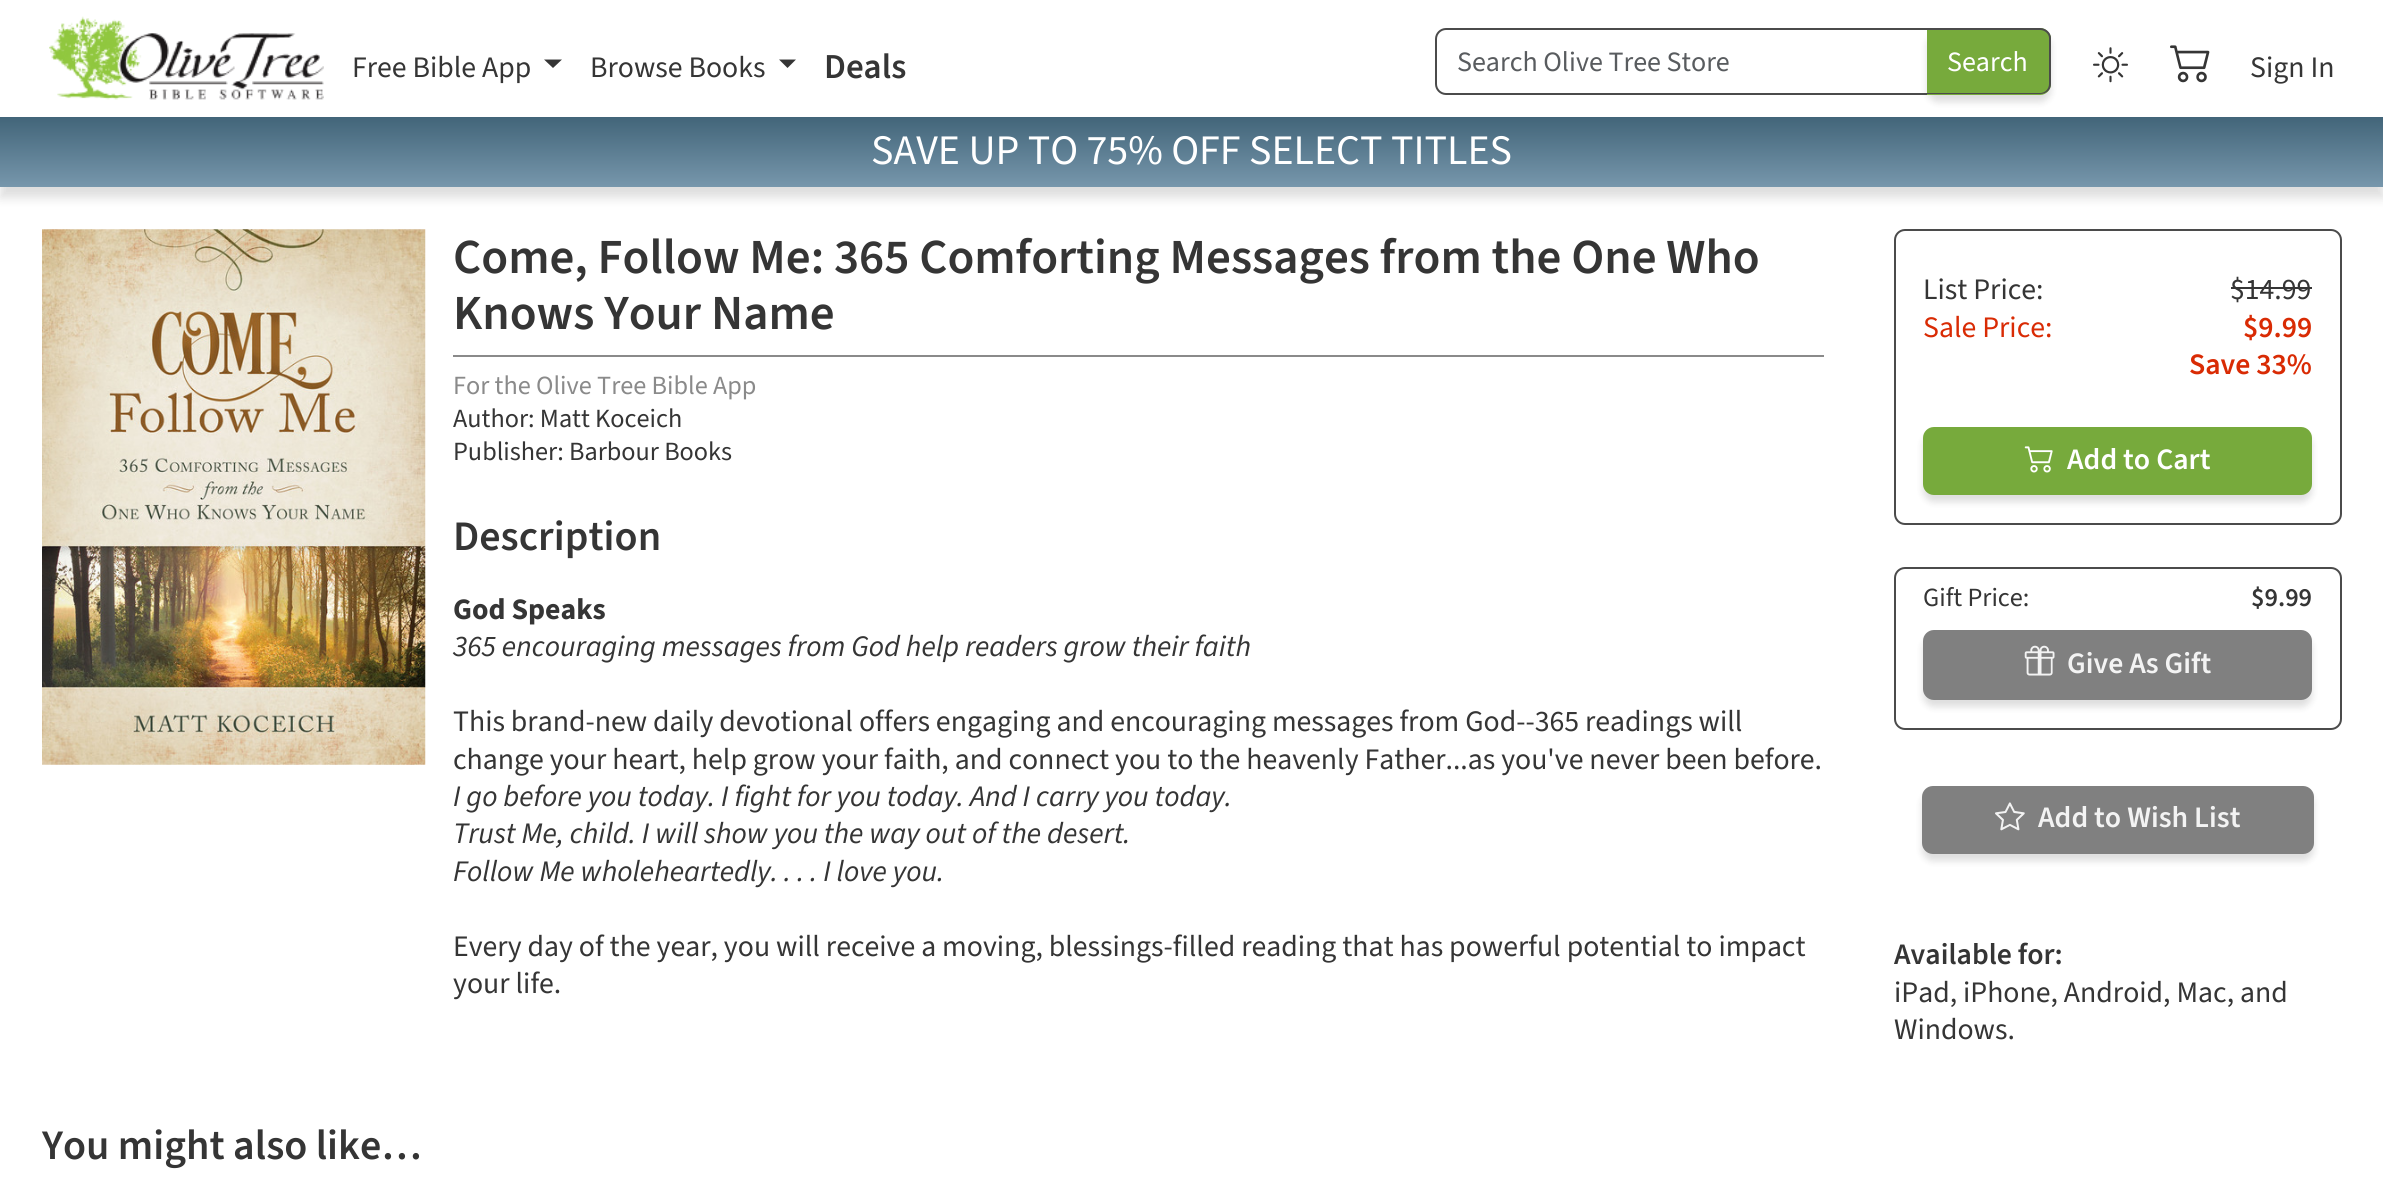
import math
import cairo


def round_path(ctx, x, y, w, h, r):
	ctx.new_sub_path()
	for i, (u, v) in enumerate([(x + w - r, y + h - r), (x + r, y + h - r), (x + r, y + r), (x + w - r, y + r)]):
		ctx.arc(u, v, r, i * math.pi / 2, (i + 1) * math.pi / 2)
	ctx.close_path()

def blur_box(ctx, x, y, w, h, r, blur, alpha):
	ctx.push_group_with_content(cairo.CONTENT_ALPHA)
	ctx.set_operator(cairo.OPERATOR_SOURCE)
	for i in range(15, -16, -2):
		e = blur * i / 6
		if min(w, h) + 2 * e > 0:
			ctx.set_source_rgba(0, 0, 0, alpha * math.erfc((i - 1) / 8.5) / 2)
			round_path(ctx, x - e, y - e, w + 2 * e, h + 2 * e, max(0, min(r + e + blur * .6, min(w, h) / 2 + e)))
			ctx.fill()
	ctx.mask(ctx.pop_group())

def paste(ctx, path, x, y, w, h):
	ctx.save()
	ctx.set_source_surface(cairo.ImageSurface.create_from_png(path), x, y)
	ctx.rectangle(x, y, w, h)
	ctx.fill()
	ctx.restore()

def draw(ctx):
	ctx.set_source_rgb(1, 1, 1)
	ctx.paint()
	paste(ctx, 'media/1.png', 49, 16, 275, 84)
	ctx.select_font_face('Source Sans 3')
	ctx.set_font_size(29.75)
	ctx.set_source_rgb(0.208, 0.208, 0.208)
	ctx.move_to(352, 77)
	ctx.show_text('Free Bible App')
	ctx.new_path()
	ctx.move_to(544, 59.5)
	ctx.line_to(562, 59.5)
	ctx.line_to(553, 68)
	ctx.close_path()
	ctx.fill()
	ctx.move_to(590, 77)
	ctx.show_text('Browse Books')
	ctx.new_path()
	ctx.move_to(779, 59.5)
	ctx.line_to(796, 59.5)
	ctx.line_to(787.5, 68)
	ctx.close_path()
	ctx.fill()
	ctx.select_font_face('Source Sans 3 SemiBold')
	ctx.set_font_size(35)
	ctx.move_to(824, 78)
	ctx.show_text('Deals')
	ctx.new_path()
	ctx.move_to(1446, 29)
	ctx.line_to(1928, 29)
	ctx.line_to(1928, 94)
	ctx.line_to(1446, 94)
	ctx.curve_to(1440.5, 94, 1436, 89.5, 1436, 84)
	ctx.line_to(1436, 39)
	ctx.curve_to(1436, 33.5, 1440.5, 29, 1446, 29)
	ctx.close_path()
	ctx.set_source_rgb(0.294, 0.294, 0.294)
	ctx.stroke()
	ctx.select_font_face('Source Sans 3')
	ctx.set_font_size(28)
	ctx.set_source_rgb(0.349, 0.361, 0.373)
	ctx.move_to(1457, 71)
	ctx.show_text('Search Olive Tree Store')
	ctx.set_source_rgb(0, 0, 0)
	blur_box(ctx, 1927, 35, 124, 67, 11, 3.5, 0.13)
	ctx.set_source_rgb(0.467, 0.667, 0.235)
	ctx.new_path()
	ctx.move_to(1927, 28)
	ctx.line_to(2040, 28)
	ctx.curve_to(2046, 28, 2051, 33, 2051, 39)
	ctx.line_to(2051, 84)
	ctx.curve_to(2051, 90, 2046, 95, 2040, 95)
	ctx.line_to(1927, 95)
	ctx.close_path()
	ctx.fill()
	ctx.set_source_rgb(0.294, 0.294, 0.294)
	ctx.set_fill_rule(cairo.FILL_RULE_EVEN_ODD)
	ctx.new_path()
	ctx.move_to(1927, 28)
	ctx.line_to(2040, 28)
	ctx.curve_to(2046, 28, 2051, 33, 2051, 38)
	ctx.line_to(2051, 84)
	ctx.curve_to(2051, 90, 2046, 94, 2040, 94)
	ctx.line_to(1927, 94)
	ctx.close_path()
	ctx.move_to(1927, 30)
	ctx.line_to(2040, 30)
	ctx.curve_to(2045, 30, 2049, 34, 2049, 38)
	ctx.line_to(2049, 84)
	ctx.curve_to(2049, 89, 2045, 93, 2040, 93)
	ctx.line_to(1927, 93)
	ctx.close_path()
	ctx.fill()
	ctx.set_source_rgb(1, 1, 1)
	ctx.move_to(1947, 71)
	ctx.show_text('Search')
	paste(ctx, 'media/2.png', 2093, 47, 35, 36)
	paste(ctx, 'media/3.png', 2170, 45, 40, 38)
	ctx.set_font_size(29.75)
	ctx.set_source_rgb(0.208, 0.208, 0.208)
	ctx.move_to(2250, 77)
	ctx.show_text('Sign In')
	ctx.set_source_rgb(0, 0, 0)
	blur_box(ctx, 0, 128, 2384, 70, 0, 5, 0.13)
	gradient = cairo.LinearGradient(1192, 117, 1192, 187)
	gradient.add_color_stop_rgba(0, 0.259, 0.396, 0.475, 1)
	gradient.add_color_stop_rgba(1, 0.467, 0.592, 0.675, 1)
	ctx.set_source(gradient)
	ctx.rectangle(0, 117, 2383, 70)
	ctx.fill()
	ctx.set_font_size(42)
	ctx.set_source_rgb(1, 1, 1)
	ctx.move_to(871, 164)
	ctx.show_text('SAVE UP TO 75% OFF SELECT TITLES')
	paste(ctx, 'media/4.png', 42, 229, 384, 536)
	ctx.select_font_face('Source Sans 3 SemiBold')
	ctx.set_font_size(49)
	ctx.set_source_rgb(0.208, 0.208, 0.208)
	ctx.move_to(453, 273)
	ctx.show_text('Come, Follow Me: 365 Comforting Messages from the One Who')
	ctx.move_to(453, 329)
	ctx.show_text('Knows Your Name')
	ctx.set_source_rgb(0.541, 0.541, 0.541)
	ctx.rectangle(453, 355, 1371, 2)
	ctx.fill()
	ctx.select_font_face('Source Sans 3')
	ctx.set_font_size(26.25)
	ctx.move_to(453, 394)
	ctx.show_text('For the Olive Tree Bible App')
	ctx.set_source_rgb(0.208, 0.208, 0.208)
	ctx.move_to(453, 427)
	ctx.show_text('Author: Matt Koceich')
	ctx.move_to(453, 460)
	ctx.show_text('Publisher: Barbour Books')
	ctx.select_font_face('Source Sans 3 SemiBold')
	ctx.set_font_size(42)
	ctx.move_to(453, 550)
	ctx.show_text('Description')
	ctx.select_font_face('Source Sans 3', cairo.FONT_SLANT_NORMAL, cairo.FONT_WEIGHT_BOLD)
	ctx.set_font_size(29.75)
	ctx.move_to(453, 619)
	ctx.show_text('God Speaks')
	ctx.select_font_face('Source Sans 3', cairo.FONT_SLANT_ITALIC)
	ctx.move_to(453, 656)
	ctx.show_text('365 encouraging messages from God help readers grow their faith')
	ctx.select_font_face('Source Sans 3')
	ctx.move_to(453, 731)
	ctx.show_text('This brand-new daily devotional offers engaging and encouraging messages from God--365 readings will')
	ctx.move_to(453, 769)
	ctx.show_text('change your heart, help grow your faith, and connect you to the heavenly Father...as you\'ve never been before.')
	ctx.select_font_face('Source Sans 3', cairo.FONT_SLANT_ITALIC)
	for x, y, s in [
		(453, 806, 'I go before you today. I fight for you today. And I carry you today.'),
		(453, 843, 'Trust Me, child. I will show you the way out of the desert.'),
		(453, 881, 'Follow Me wholeheartedly. . . . I love you.'),
	]:
		ctx.move_to(x, y)
		ctx.show_text(s)
	ctx.select_font_face('Source Sans 3')
	ctx.move_to(453, 956)
	ctx.show_text('Every day of the year, you will receive a moving, blessings-filled reading that has powerful potential to impact')
	ctx.move_to(453, 993)
	ctx.show_text('your life.')
	round_path(ctx, 1895, 230, 446, 294, 10)
	ctx.set_source_rgb(0.294, 0.294, 0.294)
	ctx.stroke()
	ctx.set_source_rgb(0.208, 0.208, 0.208)
	ctx.move_to(1923, 299)
	ctx.show_text('List Price:')
	ctx.move_to(2230, 299)
	ctx.show_text('$14.99')
	ctx.rectangle(2231, 287, 81, 2)
	ctx.fill()
	ctx.set_source_rgb(0.851, 0.169, 0.016)
	ctx.move_to(1923, 337)
	ctx.show_text('Sale Price:')
	ctx.select_font_face('Source Sans 3 SemiBold')
	ctx.move_to(2243, 337)
	ctx.show_text('$9.99')
	ctx.move_to(2189, 374)
	ctx.show_text('Save 33%')
	ctx.set_source_rgb(0, 0, 0)
	blur_box(ctx, 1923, 434, 389, 68, 11, 3.5, 0.13)
	ctx.set_source_rgb(0.467, 0.667, 0.235)
	round_path(ctx, 1924, 428, 387, 66, 10)
	ctx.fill_preserve()
	ctx.stroke()
	paste(ctx, 'media/5.png', 2024, 446, 29, 27)
	ctx.set_source_rgb(1, 1, 1)
	ctx.move_to(2067, 469)
	ctx.show_text('Add to Cart')
	round_path(ctx, 1895, 568, 446, 161, 10)
	ctx.set_source_rgb(0.294, 0.294, 0.294)
	ctx.stroke()
	ctx.select_font_face('Source Sans 3')
	ctx.set_font_size(26.25)
	ctx.set_source_rgb(0.208, 0.208, 0.208)
	ctx.move_to(1923, 606)
	ctx.show_text('Gift Price:')
	ctx.select_font_face('Source Sans 3 SemiBold')
	ctx.move_to(2251, 606)
	ctx.show_text('$9.99')
	ctx.set_source_rgb(0, 0, 0)
	blur_box(ctx, 1923, 637, 389, 70, 11, 3.5, 0.13)
	ctx.set_source_rgb(0.502, 0.502, 0.502)
	round_path(ctx, 1924, 631, 387, 68, 10)
	ctx.fill_preserve()
	ctx.stroke()
	paste(ctx, 'media/6.png', 2024, 645, 31, 31)
	ctx.set_font_size(29.75)
	ctx.set_source_rgb(0.953, 0.953, 0.953)
	ctx.move_to(2067, 673)
	ctx.show_text('Give As Gift')
	ctx.set_source_rgb(0, 0, 0)
	blur_box(ctx, 1922, 793, 392, 68, 11, 3.5, 0.13)
	ctx.set_source_rgb(0.502, 0.502, 0.502)
	round_path(ctx, 1923, 787, 390, 66, 10)
	ctx.fill_preserve()
	ctx.stroke()
	paste(ctx, 'media/7.png', 1995, 802, 30, 29)
	ctx.set_source_rgb(0.953, 0.953, 0.953)
	ctx.move_to(2038, 827)
	ctx.show_text('Add to Wish List')
	ctx.set_source_rgb(0.208, 0.208, 0.208)
	ctx.move_to(1894, 964)
	ctx.show_text('Available for:')
	ctx.select_font_face('Source Sans 3')
	ctx.move_to(1894, 1002)
	ctx.show_text('iPad, iPhone, Android, Mac, and')
	ctx.move_to(1894, 1039)
	ctx.show_text('Windows.')
	ctx.select_font_face('Source Sans 3 SemiBold')
	ctx.set_font_size(42)
	ctx.move_to(42, 1159)
	ctx.show_text('You might also like…')


surface = cairo.ImageSurface(cairo.FORMAT_RGB24, 2383, 1189)
ctx = cairo.Context(surface)
options = cairo.FontOptions()
options.set_hint_metrics(cairo.HINT_METRICS_OFF)
options.set_hint_style(cairo.HINT_STYLE_NONE)
ctx.set_font_options(options)
ctx.set_miter_limit(4)
draw(ctx)
surface.write_to_png('image.png')
